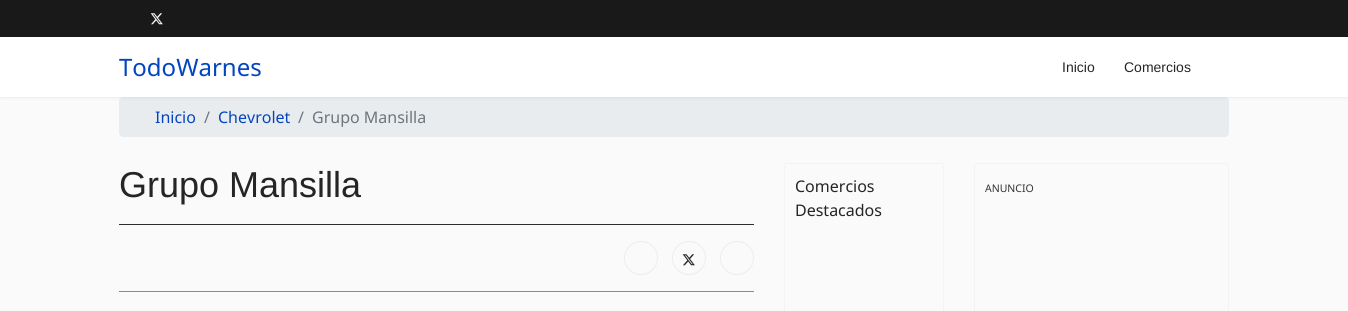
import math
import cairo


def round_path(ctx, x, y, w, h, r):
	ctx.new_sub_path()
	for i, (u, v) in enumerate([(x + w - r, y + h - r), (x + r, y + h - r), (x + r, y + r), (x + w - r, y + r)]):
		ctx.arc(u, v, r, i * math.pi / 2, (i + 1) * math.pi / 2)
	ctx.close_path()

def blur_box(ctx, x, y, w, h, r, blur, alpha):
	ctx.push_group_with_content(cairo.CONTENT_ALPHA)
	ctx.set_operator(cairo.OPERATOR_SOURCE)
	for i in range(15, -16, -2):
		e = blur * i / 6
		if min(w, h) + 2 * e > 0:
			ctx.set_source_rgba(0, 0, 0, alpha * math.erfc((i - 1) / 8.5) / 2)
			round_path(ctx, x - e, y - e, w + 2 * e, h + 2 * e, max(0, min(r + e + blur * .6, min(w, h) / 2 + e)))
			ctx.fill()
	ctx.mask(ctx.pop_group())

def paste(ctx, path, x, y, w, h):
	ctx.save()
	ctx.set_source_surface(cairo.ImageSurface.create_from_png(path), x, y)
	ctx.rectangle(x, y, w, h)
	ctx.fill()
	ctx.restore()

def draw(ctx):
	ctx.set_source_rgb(0.102, 0.098, 0.098)
	ctx.paint()
	paste(ctx, 'media/1.png', 150, 13, 13, 12)
	ctx.set_source_rgb(0.98, 0.98, 0.98)
	ctx.rectangle(0, 97, 1348, 214)
	ctx.fill()
	ctx.set_source_rgb(0.914, 0.925, 0.937)
	round_path(ctx, 119, 97, 1110, 40, 4)
	ctx.fill()
	ctx.set_source_rgb(0, 0, 0)
	blur_box(ctx, 0, 37, 1348, 60, 0, 2, 0.1)
	ctx.set_source_rgb(1, 1, 1)
	ctx.rectangle(0, 37, 1348, 60)
	ctx.fill()
	ctx.select_font_face('Noto Sans')
	ctx.set_font_size(24)
	ctx.set_source_rgb(0.012, 0.271, 0.749)
	ctx.move_to(119, 76)
	ctx.show_text('TodoWarnes')
	ctx.select_font_face('Liberation Sans')
	ctx.set_font_size(14)
	ctx.set_source_rgb(0.145, 0.145, 0.145)
	ctx.move_to(1062, 72)
	ctx.show_text('Inicio')
	ctx.move_to(1124, 72)
	ctx.show_text('Comercios')
	ctx.select_font_face('Noto Sans')
	ctx.set_font_size(16)
	ctx.set_source_rgb(0.012, 0.271, 0.749)
	ctx.move_to(155, 123)
	ctx.show_text('Inicio')
	ctx.set_source_rgb(0.424, 0.459, 0.49)
	ctx.move_to(204, 123)
	ctx.show_text('/')
	ctx.set_source_rgb(0.012, 0.271, 0.749)
	ctx.move_to(218, 123)
	ctx.show_text('Chevrolet')
	ctx.set_source_rgb(0.424, 0.459, 0.49)
	ctx.move_to(298, 123)
	ctx.show_text('/')
	ctx.move_to(312, 123)
	ctx.show_text('Grupo Mansilla')
	ctx.select_font_face('Liberation Sans')
	ctx.set_font_size(36)
	ctx.set_source_rgb(0.145, 0.145, 0.145)
	ctx.move_to(119, 197)
	ctx.show_text('Grupo Mansilla')
	ctx.set_source_rgb(0.176, 0.169, 0.169)
	ctx.rectangle(119, 224, 635, 1)
	ctx.fill()
	ctx.set_source_rgb(0.549, 0.541, 0.541)
	ctx.rectangle(119, 291, 635, 1)
	ctx.fill()
	ctx.arc(641, 258, 16.5, 0, 2 * math.pi)
	ctx.set_source_rgb(0.929, 0.929, 0.929)
	ctx.set_line_width(1)
	ctx.stroke()
	ctx.arc(689, 258, 16.5, 0, 2 * math.pi)
	ctx.stroke()
	paste(ctx, 'media/2.png', 682, 254, 13, 12)
	ctx.arc(737, 258, 16.5, 0, 2 * math.pi)
	ctx.stroke()
	round_path(ctx, 784.5, 163.5, 159, 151, 2.5)
	ctx.set_source_rgb(0.953, 0.953, 0.953)
	ctx.stroke()
	ctx.select_font_face('Noto Sans')
	ctx.set_font_size(16)
	ctx.set_source_rgb(0.145, 0.145, 0.145)
	ctx.move_to(795, 192)
	ctx.show_text('Comercios')
	ctx.move_to(795, 216)
	ctx.show_text('Destacados')
	round_path(ctx, 974.5, 163.5, 254, 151, 2.5)
	ctx.set_source_rgb(0.953, 0.953, 0.953)
	ctx.stroke()
	ctx.set_font_size(10.5)
	ctx.set_source_rgb(0.2, 0.2, 0.2)
	ctx.move_to(985, 192)
	ctx.show_text('ANUNCIO')


surface = cairo.ImageSurface(cairo.FORMAT_RGB24, 1348, 311)
ctx = cairo.Context(surface)
options = cairo.FontOptions()
options.set_hint_metrics(cairo.HINT_METRICS_OFF)
options.set_hint_style(cairo.HINT_STYLE_NONE)
ctx.set_font_options(options)
ctx.set_miter_limit(4)
draw(ctx)
surface.write_to_png('image.png')
